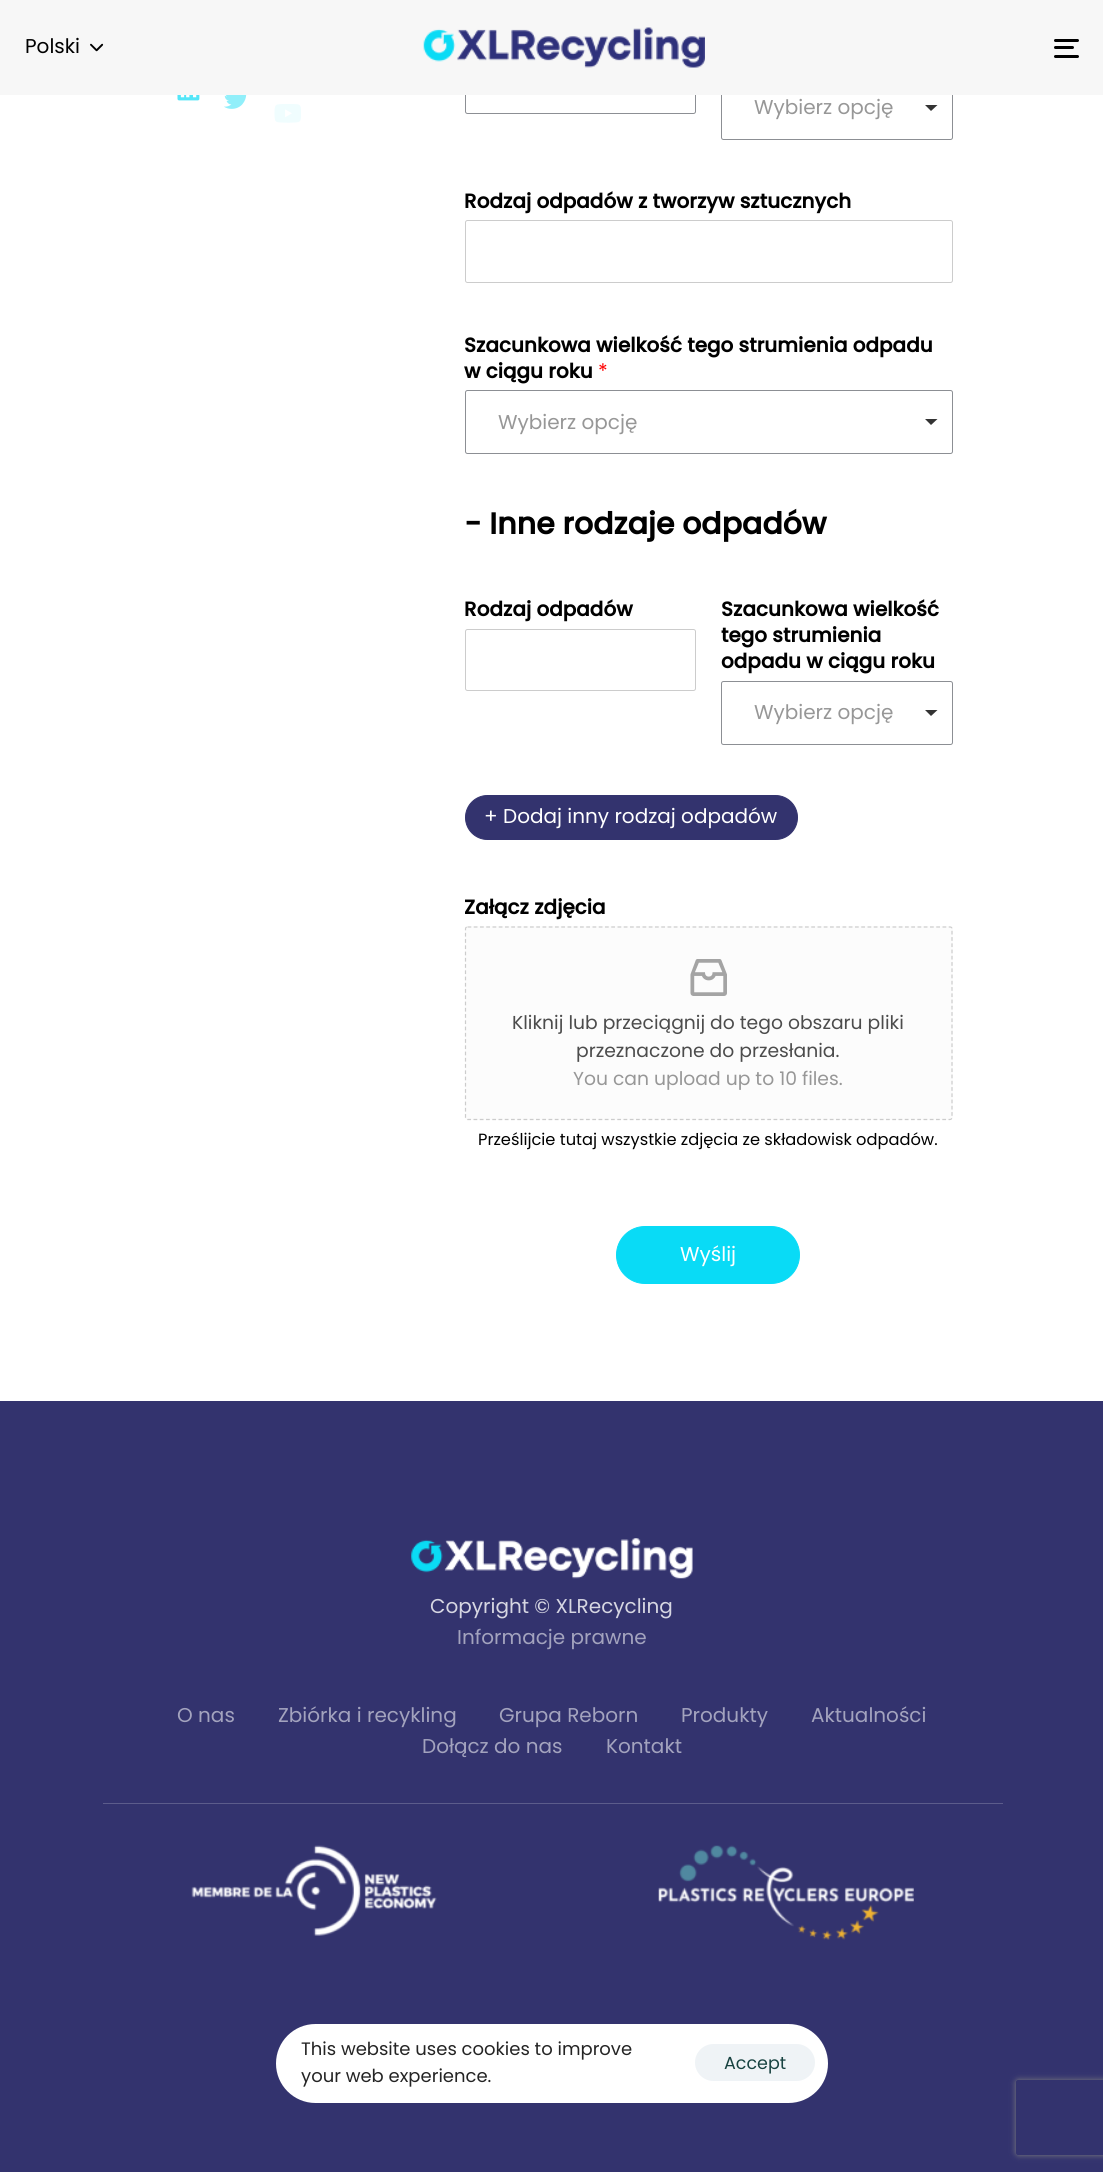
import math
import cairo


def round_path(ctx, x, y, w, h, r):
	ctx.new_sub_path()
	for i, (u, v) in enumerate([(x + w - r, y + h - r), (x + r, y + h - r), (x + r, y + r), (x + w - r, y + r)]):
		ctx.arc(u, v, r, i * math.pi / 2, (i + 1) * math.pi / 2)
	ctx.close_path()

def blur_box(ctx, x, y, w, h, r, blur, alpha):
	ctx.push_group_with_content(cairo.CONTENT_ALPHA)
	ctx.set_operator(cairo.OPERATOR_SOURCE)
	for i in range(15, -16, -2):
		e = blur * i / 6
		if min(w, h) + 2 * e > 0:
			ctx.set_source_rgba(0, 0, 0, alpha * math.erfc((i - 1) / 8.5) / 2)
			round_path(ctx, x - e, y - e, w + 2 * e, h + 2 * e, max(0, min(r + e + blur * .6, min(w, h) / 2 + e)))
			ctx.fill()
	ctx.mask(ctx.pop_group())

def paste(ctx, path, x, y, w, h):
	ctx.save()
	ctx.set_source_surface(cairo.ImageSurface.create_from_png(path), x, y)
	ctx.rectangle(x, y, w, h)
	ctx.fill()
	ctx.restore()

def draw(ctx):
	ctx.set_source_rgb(1, 1, 1)
	ctx.paint()
	round_path(ctx, 465.5, 50.5, 230, 63, 2)
	ctx.set_source_rgb(0.549, 0.561, 0.58)
	ctx.set_line_width(1)
	ctx.stroke()
	round_path(ctx, 721.5, 76.5, 231, 63, 2)
	ctx.stroke()
	ctx.set_source_rgb(0.965, 0.965, 0.965)
	ctx.rectangle(0, 0, 1103, 95)
	ctx.fill()
	ctx.select_font_face('Poppins')
	ctx.set_font_size(20)
	ctx.set_source_rgb(0, 0, 0)
	ctx.move_to(25, 53)
	ctx.show_text('Polski')
	paste(ctx, 'media/1.png', 90, 43, 14, 9)
	paste(ctx, 'media/2.png', 423, 27, 282, 41)
	round_path(ctx, 1054, 39, 25, 3, 1.5)
	ctx.fill()
	round_path(ctx, 1054, 46, 20, 3, 1.5)
	ctx.fill()
	round_path(ctx, 1054, 55, 25, 3, 1.5)
	ctx.fill()
	paste(ctx, 'media/3.png', 177, 95, 23, 6)
	paste(ctx, 'media/4.png', 224, 95, 23, 14)
	paste(ctx, 'media/5.png', 274, 104, 27, 19)
	ctx.set_source_rgb(0.592, 0.592, 0.592)
	ctx.move_to(754, 114)
	ctx.show_text('Wybierz opcję')
	ctx.set_source_rgb(0.2, 0.2, 0.2)
	ctx.new_path()
	ctx.move_to(925, 105)
	ctx.line_to(937.5, 105)
	ctx.line_to(931, 111)
	ctx.close_path()
	ctx.fill()
	ctx.select_font_face('Poppins', cairo.FONT_SLANT_NORMAL, cairo.FONT_WEIGHT_BOLD)
	ctx.set_source_rgb(0, 0, 0)
	ctx.move_to(464, 208)
	ctx.show_text('Rodzaj odpadów z tworzyw sztucznych')
	round_path(ctx, 465.5, 220.5, 487, 62, 2)
	ctx.set_source_rgb(0.8, 0.8, 0.8)
	ctx.stroke()
	ctx.set_source_rgb(0, 0, 0)
	ctx.move_to(464, 352)
	ctx.show_text('Szacunkowa wielkość tego strumienia odpadu')
	ctx.move_to(464, 378)
	ctx.show_text('w ciągu roku')
	ctx.select_font_face('Poppins')
	ctx.set_source_rgb(1, 0, 0)
	ctx.move_to(598, 378)
	ctx.show_text('*')
	round_path(ctx, 465.5, 390.5, 487, 63, 2)
	ctx.set_source_rgb(0.549, 0.561, 0.58)
	ctx.stroke()
	ctx.set_source_rgb(0.592, 0.592, 0.592)
	ctx.move_to(498, 429)
	ctx.show_text('Wybierz opcję')
	ctx.set_source_rgb(0.2, 0.2, 0.2)
	ctx.new_path()
	ctx.move_to(925, 419)
	ctx.line_to(937.5, 419)
	ctx.line_to(931, 425)
	ctx.close_path()
	ctx.fill()
	ctx.select_font_face('Poppins', cairo.FONT_SLANT_NORMAL, cairo.FONT_WEIGHT_BOLD)
	ctx.set_font_size(30)
	ctx.set_source_rgb(0, 0, 0)
	ctx.move_to(464, 534)
	ctx.show_text('- Inne rodzaje odpadów')
	ctx.set_font_size(20)
	ctx.move_to(464, 616)
	ctx.show_text('Rodzaj odpadów')
	round_path(ctx, 465.5, 629.5, 230, 61, 2)
	ctx.set_source_rgb(0.8, 0.8, 0.8)
	ctx.stroke()
	ctx.set_source_rgb(0, 0, 0)
	for x, y, s in [
		(721, 616, 'Szacunkowa wielkość'),
		(721, 642, 'tego strumienia'),
		(721, 668, 'odpadu w ciągu roku'),
	]:
		ctx.move_to(x, y)
		ctx.show_text(s)
	round_path(ctx, 721.5, 681.5, 231, 63, 2)
	ctx.set_source_rgb(0.549, 0.561, 0.58)
	ctx.stroke()
	ctx.select_font_face('Poppins')
	ctx.set_source_rgb(0.592, 0.592, 0.592)
	ctx.move_to(754, 719)
	ctx.show_text('Wybierz opcję')
	ctx.set_source_rgb(0.2, 0.2, 0.2)
	ctx.new_path()
	ctx.move_to(925, 710)
	ctx.line_to(937.5, 710)
	ctx.line_to(931, 716)
	ctx.close_path()
	ctx.fill()
	ctx.set_source_rgb(0.2, 0.2, 0.431)
	round_path(ctx, 465.5, 795.5, 332, 44, 22)
	ctx.fill_preserve()
	ctx.stroke()
	ctx.set_source_rgb(1, 1, 1)
	ctx.move_to(484, 823)
	ctx.show_text('+ Dodaj inny rodzaj odpadów')
	ctx.select_font_face('Poppins', cairo.FONT_SLANT_NORMAL, cairo.FONT_WEIGHT_BOLD)
	ctx.set_source_rgb(0, 0, 0)
	ctx.move_to(464, 914)
	ctx.show_text('Załącz zdjęcia')
	ctx.set_source_rgb(0.988, 0.988, 0.988)
	round_path(ctx, 465, 926, 488, 194, 2.5)
	ctx.fill()
	ctx.new_path()
	ctx.move_to(467.5, 927)
	ctx.line_to(950, 927)
	ctx.curve_to(951, 927, 952, 927.5, 952, 929)
	ctx.line_to(952, 1117.5)
	ctx.curve_to(952, 1118.5, 951, 1119.5, 950, 1119.5)
	ctx.line_to(467.5, 1119.5)
	ctx.curve_to(466.5, 1119.5, 465.5, 1118.5, 465.5, 1117.5)
	ctx.line_to(465.5, 929)
	ctx.curve_to(465.5, 927.5, 466.5, 927, 467.5, 927)
	ctx.close_path()
	ctx.set_source_rgb(0.8, 0.8, 0.8)
	ctx.set_line_width(1.2)
	ctx.set_dash([3.75, 2.5])
	ctx.stroke()
	paste(ctx, 'media/6.png', 690, 959, 37, 37)
	ctx.select_font_face('Poppins')
	ctx.set_font_size(18.75)
	ctx.set_source_rgb(0.298, 0.298, 0.298)
	ctx.move_to(512, 1029)
	ctx.show_text('Kliknij lub przeciągnij do tego obszaru pliki')
	ctx.move_to(576, 1057)
	ctx.show_text('przeznaczone do przesłania.')
	ctx.set_source_rgb(0.592, 0.592, 0.592)
	ctx.move_to(573, 1085)
	ctx.show_text('You can upload up to 10 files.')
	ctx.set_font_size(16.25)
	ctx.set_source_rgb(0, 0, 0)
	ctx.move_to(478, 1145)
	ctx.show_text('Prześlijcie tutaj wszystkie zdjęcia ze składowisk odpadów.')
	ctx.set_source_rgb(0.039, 0.859, 0.961)
	round_path(ctx, 616.5, 1226.5, 183, 57, 28.5)
	ctx.fill_preserve()
	ctx.set_line_width(1)
	ctx.set_dash([])
	ctx.stroke()
	ctx.set_font_size(20)
	ctx.set_source_rgb(1, 1, 1)
	ctx.move_to(680, 1261)
	ctx.show_text('Wyślij')
	ctx.set_source_rgb(0.2, 0.2, 0.431)
	ctx.rectangle(0, 1401, 1103, 771)
	ctx.fill()
	paste(ctx, 'media/7.png', 411, 1538, 282, 41)
	ctx.set_source_rgb(0.839, 0.839, 0.886)
	ctx.move_to(430, 1613)
	ctx.show_text('Copyright © XLRecycling')
	ctx.set_source_rgb(0.639, 0.639, 0.745)
	for x, y, s in [
		(457, 1644, 'Informacje prawne'),
		(177, 1722, 'O nas'),
		(278, 1722, 'Zbiórka i recykling'),
		(499, 1722, 'Grupa Reborn'),
		(681, 1722, 'Produkty'),
		(811, 1722, 'Aktualności'),
		(422, 1753, 'Dołącz do nas'),
		(606, 1753, 'Kontakt'),
	]:
		ctx.move_to(x, y)
		ctx.show_text(s)
	ctx.set_source_rgb(0.361, 0.361, 0.545)
	ctx.rectangle(103, 1803, 900, 1)
	ctx.fill()
	paste(ctx, 'media/8.png', 191, 1845, 246, 91)
	paste(ctx, 'media/9.png', 658, 1845, 256, 95)
	ctx.set_source_rgb(1, 1, 1)
	round_path(ctx, 276, 2024, 552, 79, 39.5)
	ctx.fill()
	ctx.set_font_size(18)
	ctx.set_source_rgb(0.141, 0.141, 0.141)
	ctx.move_to(301, 2055)
	ctx.show_text('This website uses cookies to improve')
	ctx.move_to(301, 2082)
	ctx.show_text('your web experience.')
	ctx.set_source_rgb(0.937, 0.953, 0.961)
	round_path(ctx, 695, 2044, 120, 37, 18.5)
	ctx.fill()
	ctx.set_font_size(17.5)
	ctx.set_source_rgb(0.094, 0.263, 0.255)
	ctx.move_to(724, 2069)
	ctx.show_text('Accept')
	ctx.save()
	ctx.set_fill_rule(cairo.FILL_RULE_EVEN_ODD)
	ctx.new_path()
	ctx.move_to(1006, 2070)
	ctx.line_to(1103, 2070)
	ctx.line_to(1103, 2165)
	ctx.line_to(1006, 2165)
	ctx.close_path()
	ctx.move_to(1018.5, 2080)
	ctx.line_to(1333.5, 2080)
	ctx.curve_to(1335, 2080, 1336, 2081, 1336, 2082.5)
	ctx.line_to(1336, 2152.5)
	ctx.curve_to(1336, 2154, 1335, 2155, 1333.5, 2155)
	ctx.line_to(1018.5, 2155)
	ctx.curve_to(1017, 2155, 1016, 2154, 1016, 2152.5)
	ctx.line_to(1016, 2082.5)
	ctx.curve_to(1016, 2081, 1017, 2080, 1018.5, 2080)
	ctx.close_path()
	ctx.clip()
	ctx.set_source_rgb(0.502, 0.502, 0.502)
	blur_box(ctx, 1016, 2080, 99, 75, 2.5, 3, 1)
	ctx.restore()


surface = cairo.ImageSurface(cairo.FORMAT_RGB24, 1103, 2172)
ctx = cairo.Context(surface)
options = cairo.FontOptions()
options.set_hint_metrics(cairo.HINT_METRICS_OFF)
options.set_hint_style(cairo.HINT_STYLE_NONE)
ctx.set_font_options(options)
ctx.set_miter_limit(4)
draw(ctx)
surface.write_to_png('image.png')
